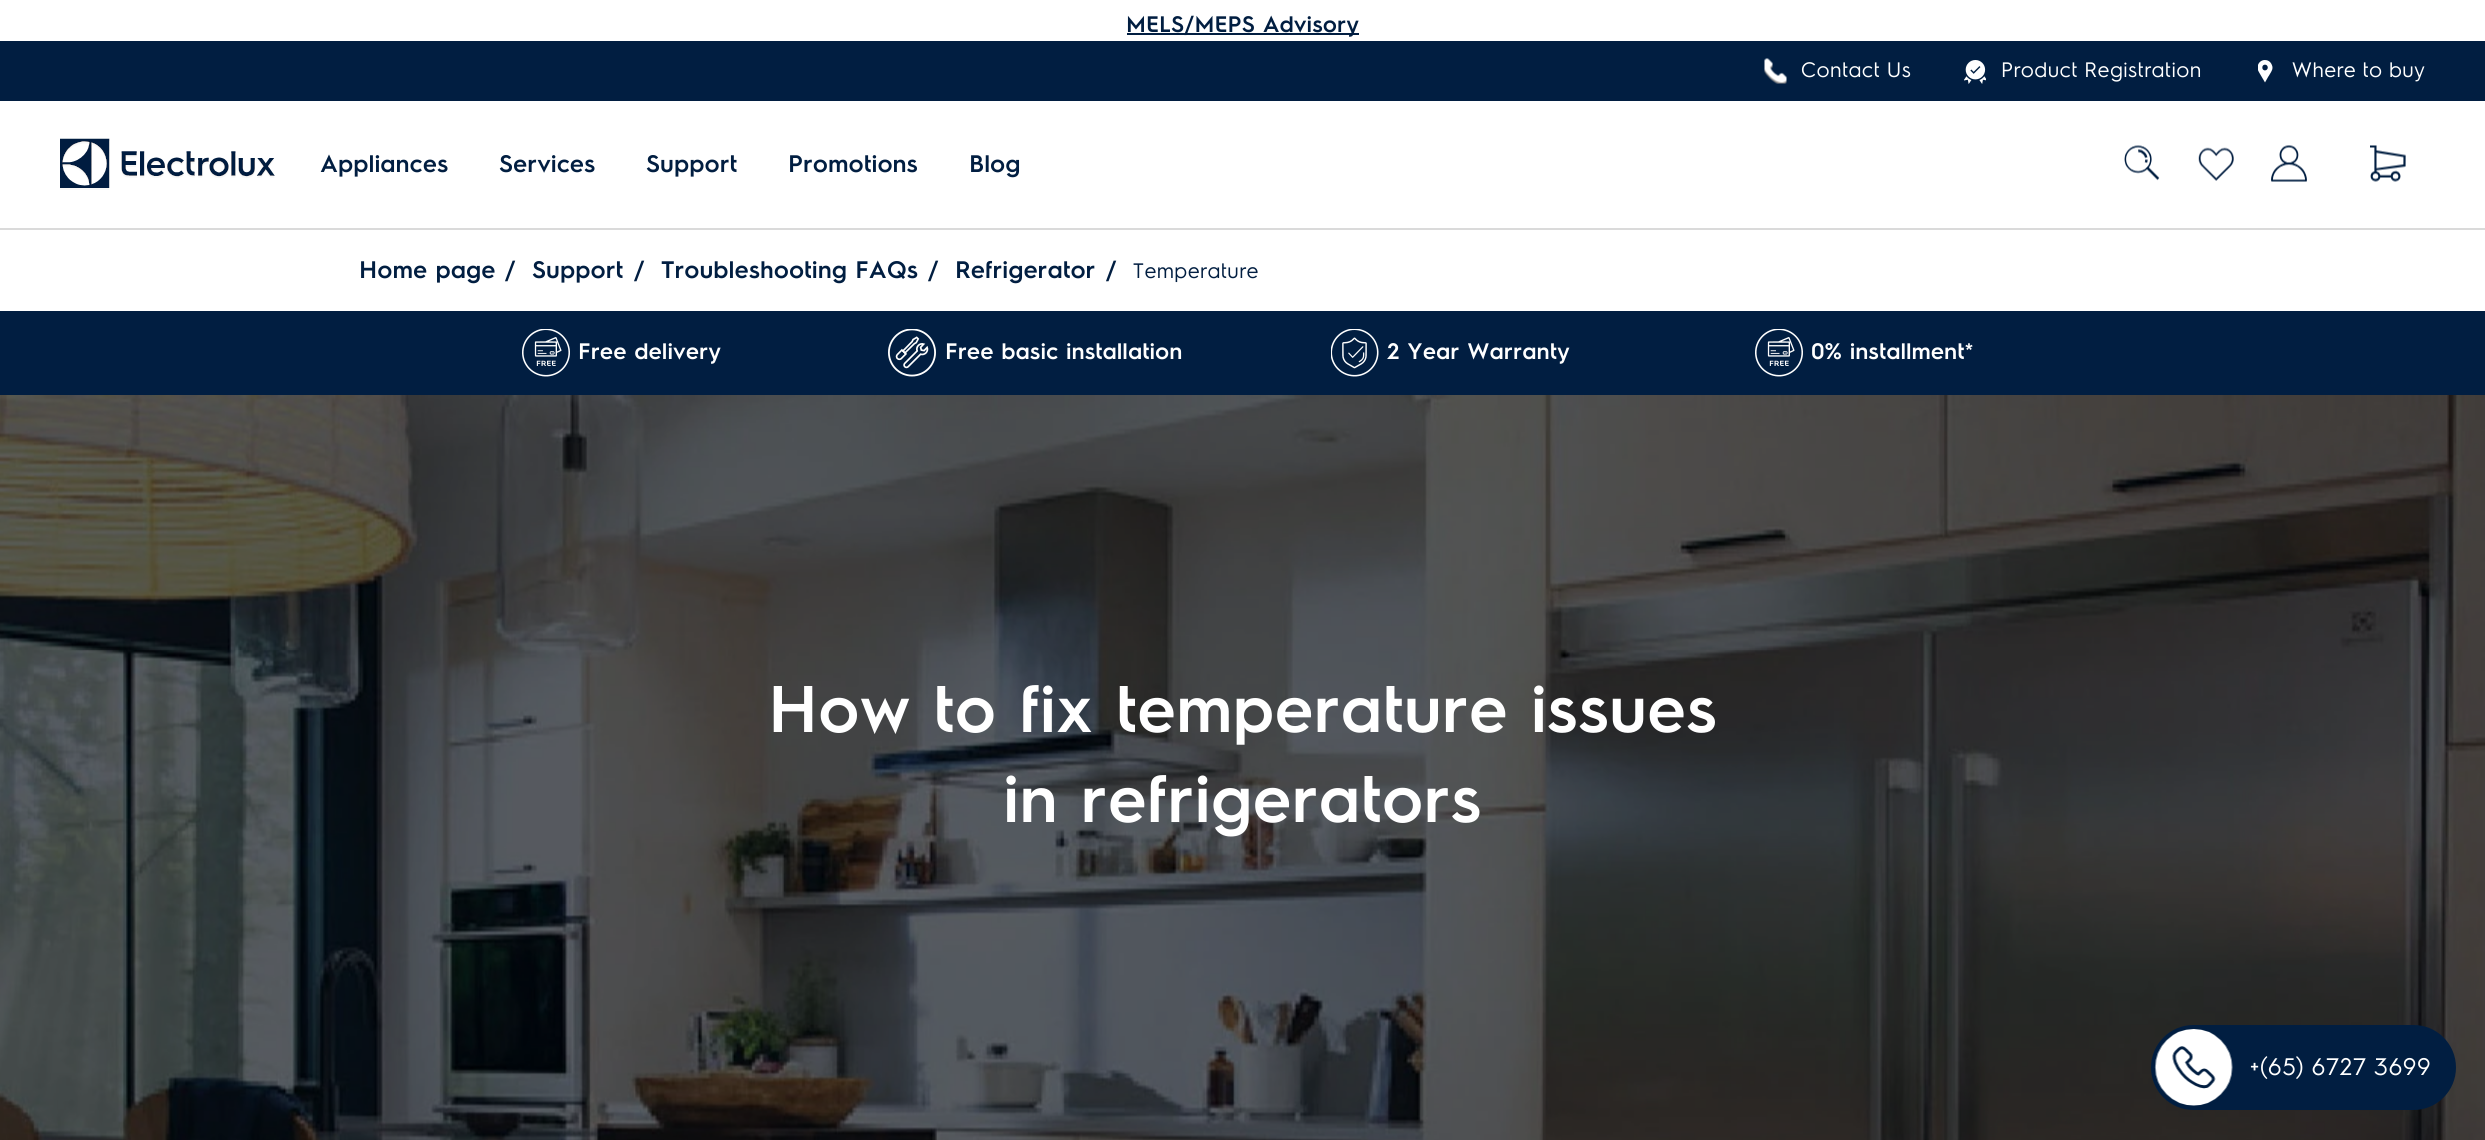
import math
import cairo


def round_path(ctx, x, y, w, h, r):
	ctx.new_sub_path()
	for i, (u, v) in enumerate([(x + w - r, y + h - r), (x + r, y + h - r), (x + r, y + r), (x + w - r, y + r)]):
		ctx.arc(u, v, r, i * math.pi / 2, (i + 1) * math.pi / 2)
	ctx.close_path()

def paste(ctx, path, x, y, w, h):
	ctx.save()
	ctx.set_source_surface(cairo.ImageSurface.create_from_png(path), x, y)
	ctx.rectangle(x, y, w, h)
	ctx.fill()
	ctx.restore()

def draw(ctx):
	ctx.set_source_rgb(1, 1, 1)
	ctx.paint()
	ctx.set_source_rgb(0.855, 0.855, 0.855)
	ctx.rectangle(0, 228, 2485, 2)
	ctx.fill()
	ctx.set_source_rgb(0.004, 0.118, 0.255)
	ctx.rectangle(1127, 33, 232, 2)
	ctx.fill()
	ctx.select_font_face('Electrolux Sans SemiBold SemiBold')
	ctx.set_font_size(22.5)
	ctx.move_to(1126, 32)
	ctx.show_text('MELS/MEPS Advisory')
	ctx.rectangle(0, 41, 2485, 60)
	ctx.fill()
	paste(ctx, 'media/1.png', 1764, 58, 23, 26)
	ctx.select_font_face('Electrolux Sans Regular')
	ctx.set_font_size(21)
	ctx.set_source_rgb(1, 1, 1)
	ctx.move_to(1801, 77)
	ctx.show_text('Contact Us')
	paste(ctx, 'media/2.png', 1964, 60, 22, 24)
	ctx.move_to(2001, 77)
	ctx.show_text('Product Registration')
	paste(ctx, 'media/3.png', 2258, 60, 15, 23)
	ctx.move_to(2292, 77)
	ctx.show_text('Where to buy')
	paste(ctx, 'media/4.png', 60, 138, 215, 52)
	ctx.select_font_face('Electrolux Sans SemiBold SemiBold')
	ctx.set_font_size(24)
	ctx.set_source_rgb(0.004, 0.118, 0.255)
	for x, y, s in [
		(320, 172, 'Appliances'),
		(499, 172, 'Services'),
		(646, 172, 'Support'),
		(788, 172, 'Promotions'),
		(969, 172, 'Blog'),
	]:
		ctx.move_to(x, y)
		ctx.show_text(s)
	paste(ctx, 'media/5.png', 2124, 145, 36, 36)
	paste(ctx, 'media/6.png', 2198, 147, 36, 34)
	paste(ctx, 'media/7.png', 2271, 145, 36, 37)
	paste(ctx, 'media/8.png', 2370, 145, 36, 37)
	for x, y, s in [
		(359, 278, 'Home page'),
		(505, 278, '/'),
		(532, 278, 'Support'),
		(634, 278, '/'),
		(661, 278, 'Troubleshooting FAQs'),
		(928, 278, '/'),
		(955, 278, 'Refrigerator'),
		(1106, 278, '/'),
	]:
		ctx.move_to(x, y)
		ctx.show_text(s)
	ctx.select_font_face('Electrolux Sans Regular')
	ctx.set_font_size(21)
	ctx.move_to(1133, 278)
	ctx.show_text('Temperature')
	ctx.rectangle(0, 311, 2485, 84)
	ctx.fill()
	paste(ctx, 'media/9.png', 522, 329, 48, 48)
	ctx.select_font_face('Electrolux Sans SemiBold SemiBold')
	ctx.set_font_size(22.5)
	ctx.set_source_rgb(1, 1, 1)
	ctx.move_to(578, 359)
	ctx.show_text('Free delivery')
	paste(ctx, 'media/10.png', 888, 329, 48, 48)
	ctx.move_to(945, 359)
	ctx.show_text('Free basic installation')
	paste(ctx, 'media/11.png', 1331, 329, 48, 48)
	ctx.move_to(1387, 359)
	ctx.show_text('2 Year Warranty')
	paste(ctx, 'media/9.png', 1755, 329, 48, 48)
	ctx.move_to(1811, 359)
	ctx.show_text('0% installment*')
	paste(ctx, 'media/12.png', 0, 395, 2485, 745)
	ctx.set_font_size(66)
	ctx.move_to(768, 732)
	ctx.show_text('How to fix temperature issues')
	ctx.move_to(1003, 822)
	ctx.show_text('in refrigerators')
	ctx.set_source_rgb(0.004, 0.118, 0.255)
	round_path(ctx, 2151, 1025, 305, 85, 42.5)
	ctx.fill()
	paste(ctx, 'media/13.png', 2154, 1029, 79, 77)
	ctx.select_font_face('Electrolux Sans Regular')
	ctx.set_font_size(24)
	ctx.set_source_rgb(1, 1, 1)
	ctx.move_to(2250, 1075)
	ctx.show_text('+(65) 6727 3699')


surface = cairo.ImageSurface(cairo.FORMAT_RGB24, 2485, 1140)
ctx = cairo.Context(surface)
options = cairo.FontOptions()
options.set_hint_metrics(cairo.HINT_METRICS_OFF)
options.set_hint_style(cairo.HINT_STYLE_NONE)
ctx.set_font_options(options)
ctx.set_miter_limit(4)
draw(ctx)
surface.write_to_png('image.png')
